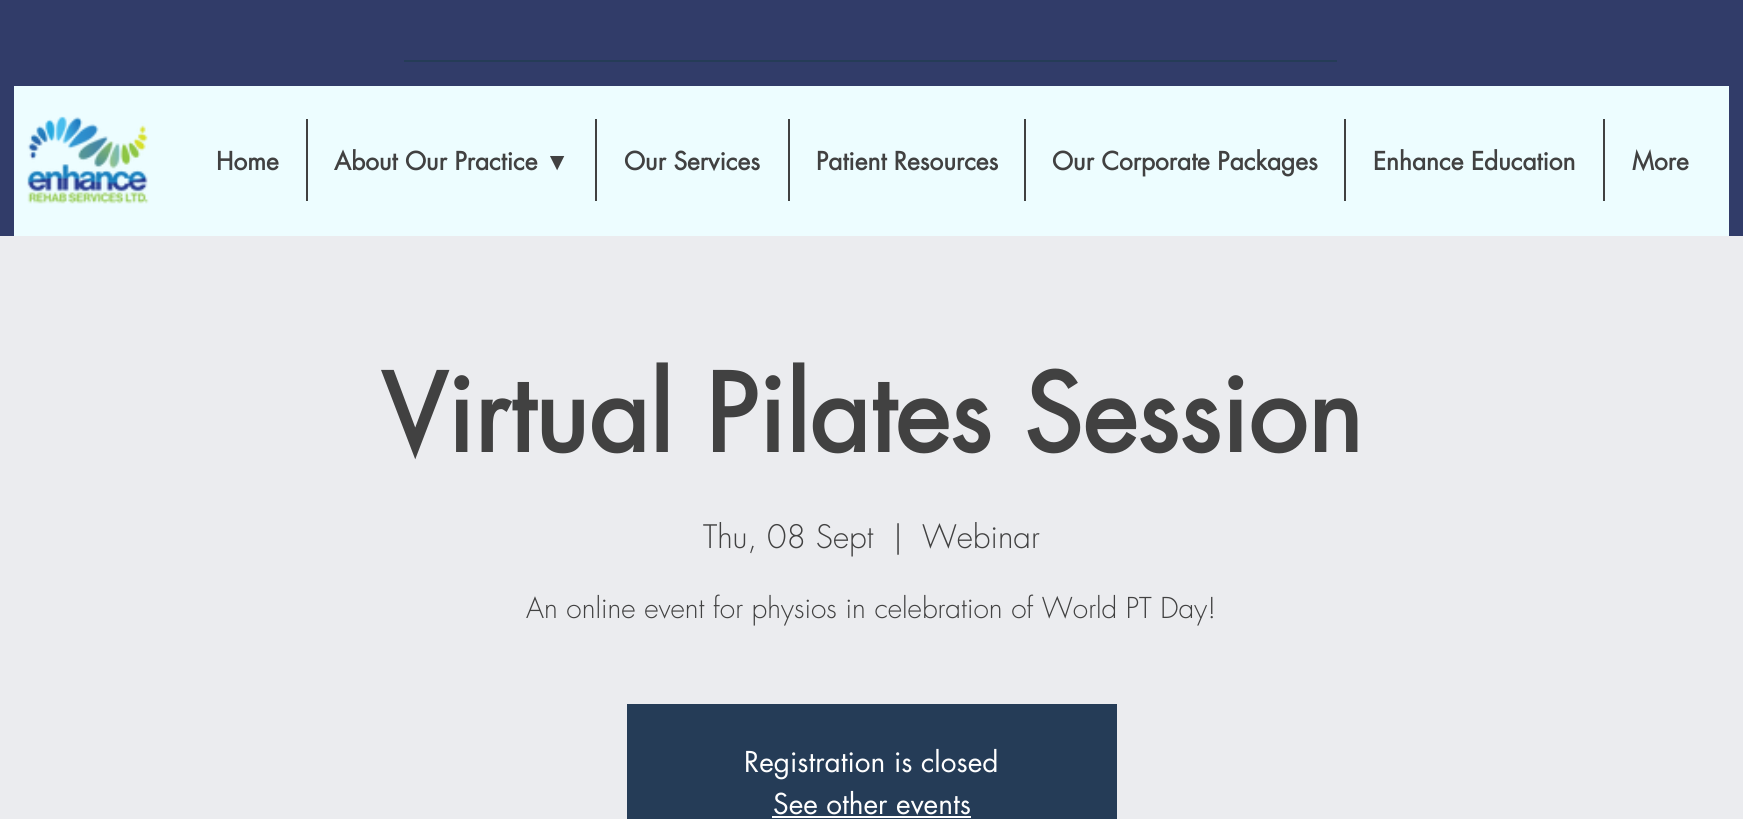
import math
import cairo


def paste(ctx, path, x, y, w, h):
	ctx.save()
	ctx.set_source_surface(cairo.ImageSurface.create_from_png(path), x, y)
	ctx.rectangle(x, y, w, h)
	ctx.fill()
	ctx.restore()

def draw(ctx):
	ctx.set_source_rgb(0.192, 0.235, 0.412)
	ctx.paint()
	ctx.set_source_rgb(0.145, 0.235, 0.341)
	ctx.rectangle(404, 60, 933, 2)
	ctx.fill()
	ctx.set_source_rgb(0.929, 0.992, 1)
	ctx.rectangle(14, 86, 1715, 150)
	ctx.fill()
	paste(ctx, 'media/1.png', 27, 116, 122, 88)
	ctx.select_font_face('futura', cairo.FONT_SLANT_NORMAL, cairo.FONT_WEIGHT_BOLD)
	ctx.set_font_size(24.5)
	ctx.set_source_rgb(0.255, 0.255, 0.255)
	ctx.move_to(216, 170)
	ctx.show_text('Home')
	ctx.rectangle(306, 119, 2, 82)
	ctx.fill()
	ctx.move_to(334, 170)
	ctx.show_text('About Our Practice')
	ctx.select_font_face('Liberation Sans', cairo.FONT_SLANT_NORMAL, cairo.FONT_WEIGHT_BOLD)
	ctx.move_to(545, 170)
	ctx.show_text('▼')
	ctx.rectangle(595, 119, 2, 82)
	ctx.fill()
	ctx.select_font_face('futura', cairo.FONT_SLANT_NORMAL, cairo.FONT_WEIGHT_BOLD)
	ctx.move_to(624, 170)
	ctx.show_text('Our Services')
	ctx.rectangle(788, 119, 2, 82)
	ctx.fill()
	ctx.move_to(816, 170)
	ctx.show_text('Patient Resources')
	ctx.rectangle(1024, 119, 2, 82)
	ctx.fill()
	ctx.move_to(1052, 170)
	ctx.show_text('Our Corporate Packages')
	ctx.rectangle(1344, 119, 2, 82)
	ctx.fill()
	ctx.move_to(1373, 170)
	ctx.show_text('Enhance Education')
	ctx.rectangle(1603, 119, 2, 82)
	ctx.fill()
	ctx.move_to(1632, 170)
	ctx.show_text('More')
	ctx.set_source_rgb(0.918, 0.925, 0.937)
	ctx.rectangle(0, 236, 1743, 583)
	ctx.fill()
	ctx.set_font_size(105)
	ctx.set_source_rgb(0.255, 0.255, 0.255)
	ctx.move_to(381, 452)
	ctx.show_text('Virtual Pilates Session')
	ctx.select_font_face('futura Light')
	ctx.set_font_size(31.5)
	for x, y, s in [
		(703, 548, 'Thu, 08 Sept'),
		(893, 548, '|'),
		(922, 548, 'Webinar'),
	]:
		ctx.move_to(x, y)
		ctx.show_text(s)
	ctx.set_font_size(28)
	ctx.move_to(526, 618)
	ctx.show_text('An online event for physios in celebration of World PT Day!')
	ctx.set_source_rgb(0.145, 0.235, 0.341)
	ctx.rectangle(627, 704, 490, 115)
	ctx.fill()
	ctx.select_font_face('futura')
	ctx.set_source_rgb(1, 1, 1)
	ctx.move_to(744, 772)
	ctx.show_text('Registration is closed')
	ctx.move_to(773, 814)
	ctx.show_text('See other events')
	ctx.rectangle(772, 816, 199, 2)
	ctx.fill()


surface = cairo.ImageSurface(cairo.FORMAT_RGB24, 1743, 819)
ctx = cairo.Context(surface)
options = cairo.FontOptions()
options.set_hint_metrics(cairo.HINT_METRICS_OFF)
options.set_hint_style(cairo.HINT_STYLE_NONE)
ctx.set_font_options(options)
ctx.set_miter_limit(4)
draw(ctx)
surface.write_to_png('image.png')
